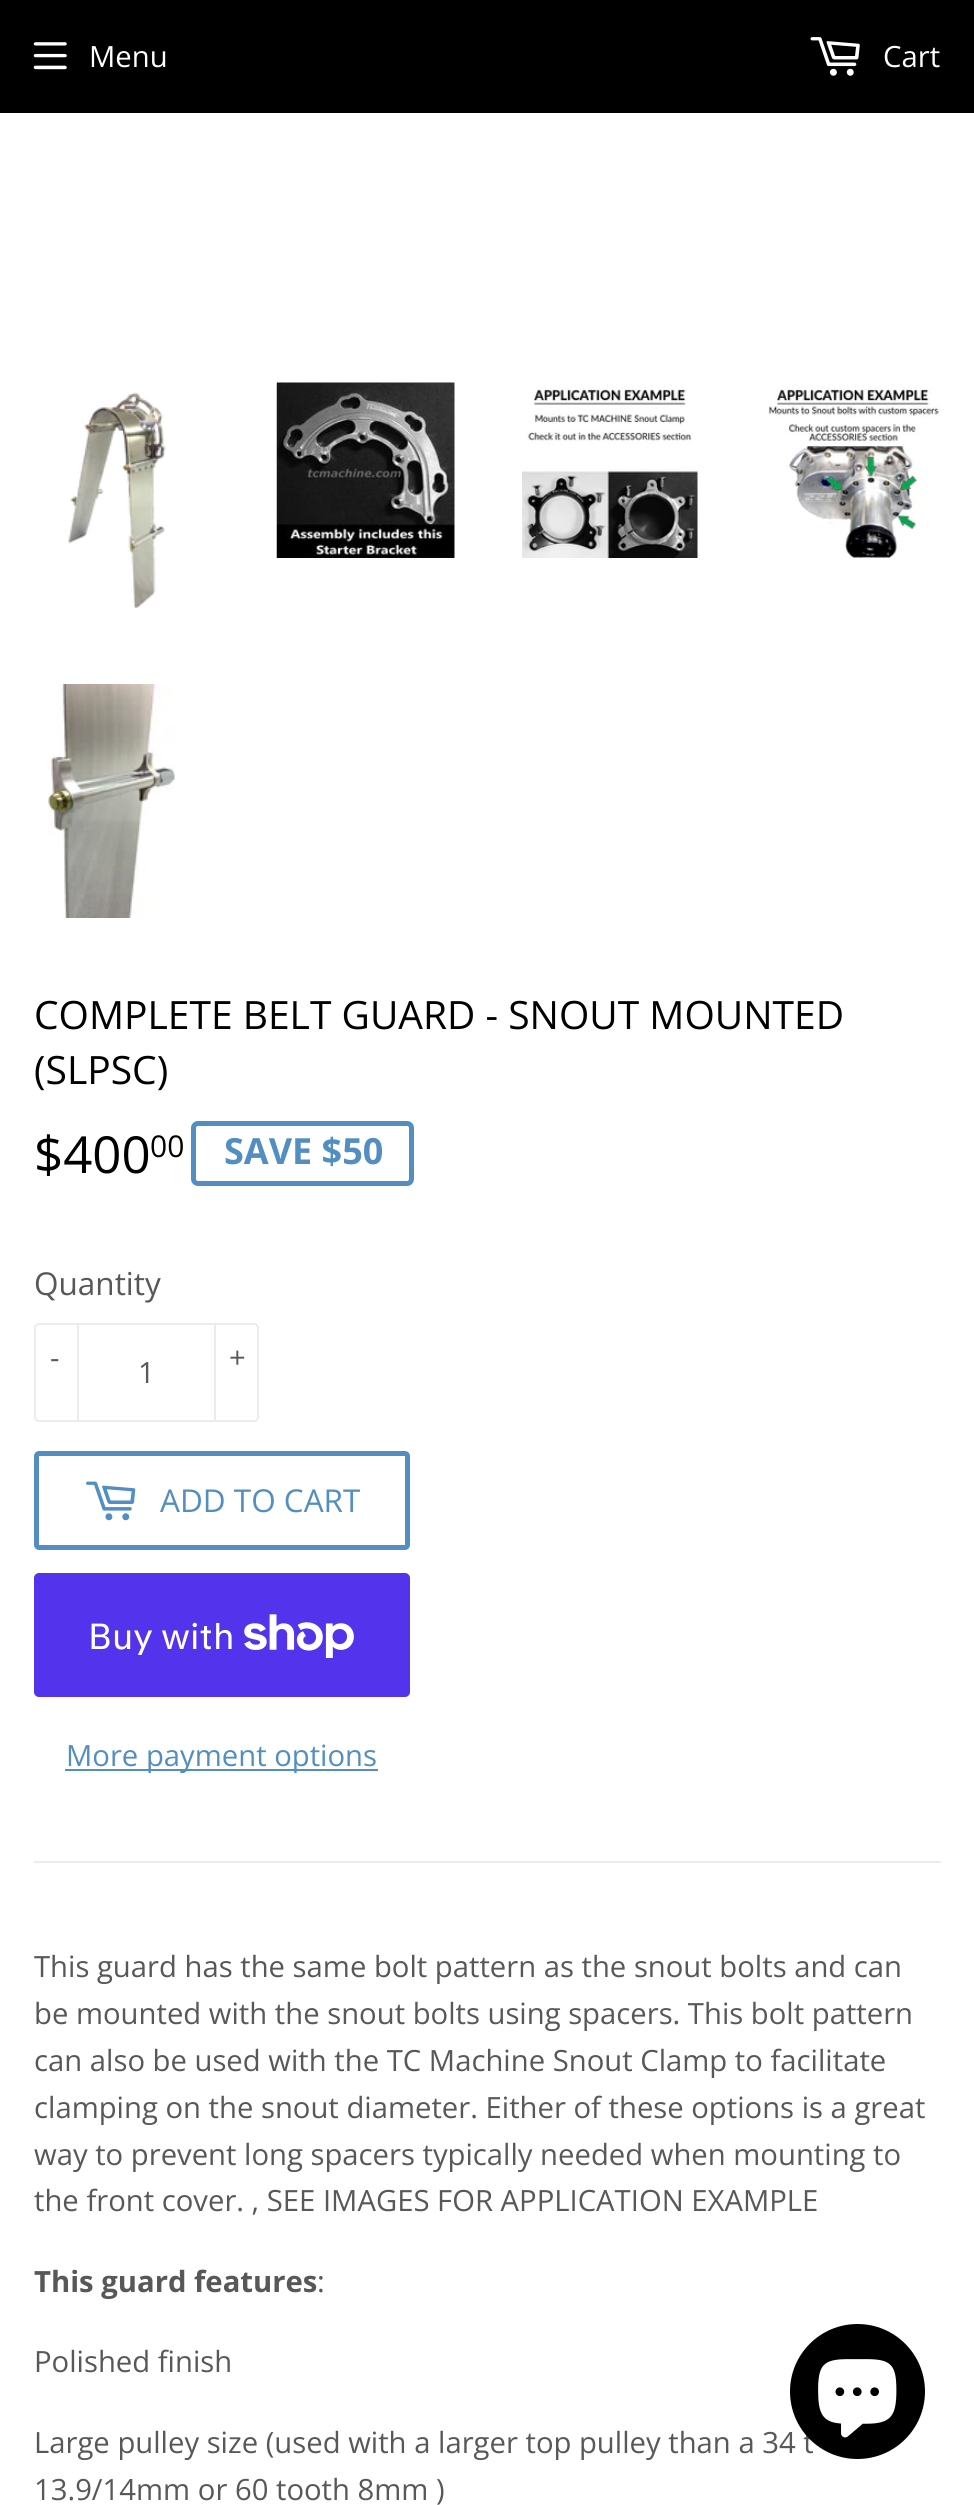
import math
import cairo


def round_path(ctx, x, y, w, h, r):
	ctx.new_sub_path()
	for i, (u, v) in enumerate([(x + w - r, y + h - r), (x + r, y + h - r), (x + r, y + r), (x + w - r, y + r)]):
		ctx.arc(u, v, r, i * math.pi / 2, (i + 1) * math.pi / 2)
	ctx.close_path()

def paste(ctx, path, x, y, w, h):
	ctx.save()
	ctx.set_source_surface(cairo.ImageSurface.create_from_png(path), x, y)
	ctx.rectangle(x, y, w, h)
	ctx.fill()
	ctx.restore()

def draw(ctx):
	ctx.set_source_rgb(1, 1, 1)
	ctx.paint()
	ctx.set_source_rgb(0, 0, 0)
	ctx.rectangle(0, 0, 974, 113)
	ctx.fill()
	paste(ctx, 'media/1.png', 33, 42, 34, 28)
	ctx.select_font_face('Open Sans')
	ctx.set_font_size(29.25)
	ctx.set_source_rgb(1, 1, 1)
	ctx.move_to(89, 67)
	ctx.show_text('Menu')
	paste(ctx, 'media/2.png', 810, 37, 50, 39)
	ctx.move_to(883, 67)
	ctx.show_text('Cart')
	paste(ctx, 'media/3.png', 68, 392, 98, 216)
	paste(ctx, 'media/4.png', 276, 382, 179, 176)
	paste(ctx, 'media/5.png', 522, 387, 176, 171)
	paste(ctx, 'media/6.png', 768, 387, 173, 171)
	paste(ctx, 'media/7.png', 47, 684, 129, 234)
	ctx.set_font_size(39)
	ctx.set_source_rgb(0, 0, 0)
	ctx.move_to(34, 1029)
	ctx.show_text('COMPLETE BELT GUARD - SNOUT MOUNTED')
	ctx.move_to(34, 1084)
	ctx.show_text('(SLPSC)')
	ctx.set_font_size(51)
	ctx.move_to(34, 1173)
	ctx.show_text('$400')
	ctx.set_font_size(30)
	ctx.move_to(150, 1157)
	ctx.show_text('00')
	round_path(ctx, 193.5, 1123.5, 218, 60, 4.5)
	ctx.set_source_rgb(0.322, 0.557, 0.757)
	ctx.set_line_width(5)
	ctx.stroke()
	ctx.select_font_face('Open Sans', cairo.FONT_SLANT_NORMAL, cairo.FONT_WEIGHT_BOLD)
	ctx.set_font_size(36)
	ctx.move_to(224, 1164)
	ctx.show_text('SAVE $50')
	ctx.select_font_face('Open Sans')
	ctx.set_font_size(31.5)
	ctx.set_source_rgb(0.345, 0.345, 0.345)
	ctx.move_to(34, 1295)
	ctx.show_text('Quantity')
	round_path(ctx, 35, 1324, 223, 97, 4)
	ctx.set_source_rgb(0.925, 0.925, 0.925)
	ctx.set_line_width(2)
	ctx.stroke()
	ctx.rectangle(77, 1323, 2, 99)
	ctx.fill()
	ctx.set_font_size(29.25)
	ctx.set_source_rgb(0.345, 0.345, 0.345)
	ctx.move_to(50, 1368)
	ctx.show_text('-')
	ctx.set_source_rgb(0.925, 0.925, 0.925)
	ctx.rectangle(214, 1323, 2, 99)
	ctx.fill()
	ctx.set_source_rgb(0.345, 0.345, 0.345)
	ctx.move_to(229, 1368)
	ctx.show_text('+')
	ctx.move_to(138, 1383)
	ctx.show_text('1')
	round_path(ctx, 36.5, 1453.5, 371, 94, 2.5)
	ctx.set_source_rgb(0.322, 0.557, 0.757)
	ctx.set_line_width(5)
	ctx.stroke()
	paste(ctx, 'media/8.png', 86, 1481, 50, 40)
	ctx.set_font_size(31.5)
	ctx.move_to(160, 1512)
	ctx.show_text('ADD TO CART')
	ctx.set_source_rgb(0.329, 0.2, 0.922)
	round_path(ctx, 34, 1573, 376, 124, 5)
	ctx.fill()
	ctx.select_font_face('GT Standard')
	ctx.set_font_size(36)
	ctx.set_source_rgb(1, 1, 1)
	ctx.move_to(88, 1649)
	ctx.show_text('Buy with')
	paste(ctx, 'media/9.png', 244, 1614, 110, 44)
	ctx.set_source_rgb(0.322, 0.557, 0.757)
	ctx.rectangle(65, 1769, 313, 2)
	ctx.fill()
	ctx.select_font_face('Open Sans')
	ctx.set_font_size(29.25)
	ctx.move_to(66, 1766)
	ctx.show_text('More payment options')
	ctx.set_source_rgb(0.925, 0.925, 0.925)
	ctx.rectangle(34, 1861, 907, 2)
	ctx.fill()
	ctx.set_source_rgb(0.345, 0.345, 0.345)
	for x, y, s in [
		(34, 1977, 'This guard has the same bolt pattern as the snout bolts and can'),
		(34, 2024, 'be mounted with the snout bolts using spacers. This bolt pattern'),
		(34, 2071, 'can also be used with the TC Machine Snout Clamp to facilitate'),
		(34, 2118, 'clamping on the snout diameter. Either of these options is a great'),
		(34, 2165, 'way to prevent long spacers typically needed when mounting to'),
		(34, 2211, 'the front cover. , SEE IMAGES FOR APPLICATION EXAMPLE'),
	]:
		ctx.move_to(x, y)
		ctx.show_text(s)
	ctx.select_font_face('Open Sans', cairo.FONT_SLANT_NORMAL, cairo.FONT_WEIGHT_BOLD)
	ctx.move_to(34, 2292)
	ctx.show_text('This guard features')
	ctx.select_font_face('Open Sans')
	for x, y, s in [
		(317, 2292, ':'),
		(34, 2372, 'Polished finish'),
		(34, 2453, 'Large pulley size (used with a larger top pulley than a 34 t'),
		(34, 2500, '13.9/14mm or 60 tooth 8mm )'),
	]:
		ctx.move_to(x, y)
		ctx.show_text(s)
	ctx.set_source_rgb(0, 0, 0)
	ctx.new_path()
	ctx.arc(857.5, 2391.5, 67.5, 0, 2 * math.pi)
	ctx.fill()
	paste(ctx, 'media/10.png', 818, 2359, 79, 79)


surface = cairo.ImageSurface(cairo.FORMAT_RGB24, 974, 2505)
ctx = cairo.Context(surface)
options = cairo.FontOptions()
options.set_hint_metrics(cairo.HINT_METRICS_OFF)
options.set_hint_style(cairo.HINT_STYLE_NONE)
ctx.set_font_options(options)
ctx.set_miter_limit(4)
draw(ctx)
surface.write_to_png('image.png')
